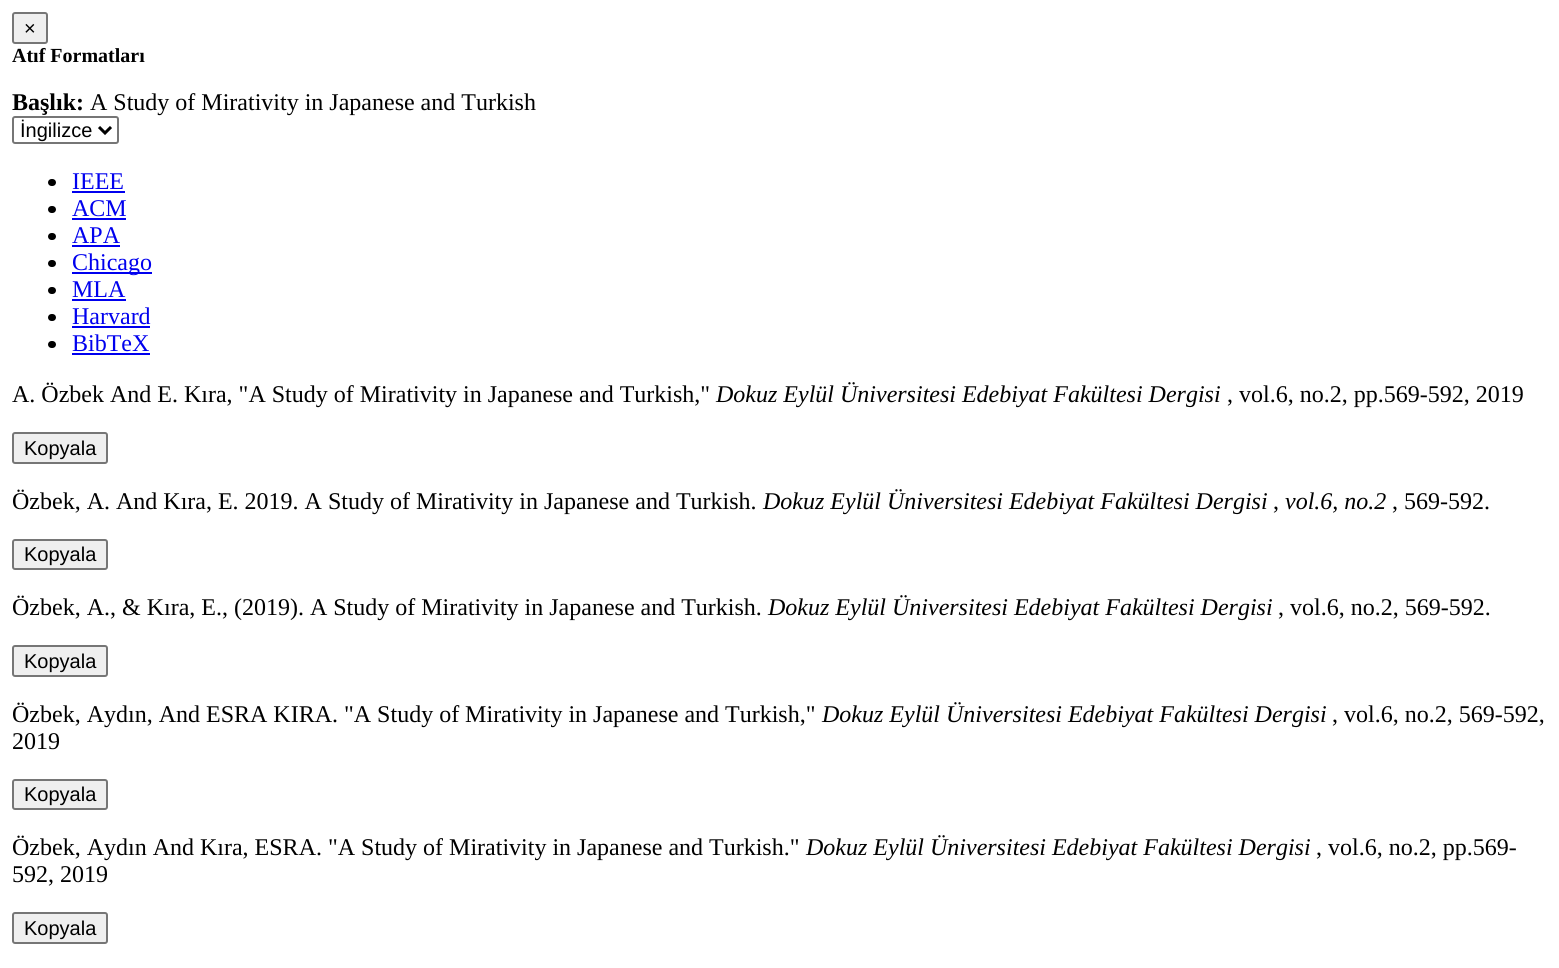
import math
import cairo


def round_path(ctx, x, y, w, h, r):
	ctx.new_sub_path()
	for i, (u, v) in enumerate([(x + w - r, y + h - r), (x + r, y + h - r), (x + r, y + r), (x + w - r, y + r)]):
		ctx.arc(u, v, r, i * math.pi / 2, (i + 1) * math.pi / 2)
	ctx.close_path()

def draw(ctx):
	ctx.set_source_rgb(1, 1, 1)
	ctx.paint()
	ctx.set_source_rgb(0.937, 0.937, 0.937)
	round_path(ctx, 13, 13, 34, 30, 2)
	ctx.fill_preserve()
	ctx.set_source_rgb(0.463, 0.463, 0.463)
	ctx.stroke()
	ctx.select_font_face('Liberation Sans')
	ctx.set_font_size(20)
	ctx.set_source_rgb(0, 0, 0)
	ctx.move_to(24, 35)
	ctx.show_text('×')
	ctx.select_font_face('Liberation Serif', cairo.FONT_SLANT_NORMAL, cairo.FONT_WEIGHT_BOLD)
	ctx.move_to(12, 62)
	ctx.show_text('Atıf Formatları')
	ctx.set_font_size(24)
	ctx.move_to(12, 110)
	ctx.show_text('Başlık:')
	ctx.select_font_face('Liberation Serif')
	ctx.move_to(90, 110)
	ctx.show_text('A Study of Mirativity in Japanese and Turkish')
	round_path(ctx, 13, 117, 105, 26, 2)
	ctx.set_source_rgb(0.463, 0.463, 0.463)
	ctx.stroke()
	ctx.new_path()
	ctx.move_to(99, 127)
	ctx.line_to(105, 133)
	ctx.line_to(111, 127)
	ctx.set_source_rgb(0, 0, 0)
	ctx.set_line_width(3)
	ctx.stroke()
	ctx.select_font_face('Liberation Sans')
	ctx.set_font_size(20)
	ctx.move_to(20, 137)
	ctx.show_text('İngilizce')
	round_path(ctx, 48, 179, 8, 7, 3.5)
	ctx.fill()
	ctx.select_font_face('Liberation Serif')
	ctx.set_font_size(24)
	ctx.set_source_rgb(0, 0, 0.933)
	ctx.move_to(72, 189)
	ctx.show_text('IEEE')
	ctx.rectangle(72, 191, 53, 2)
	ctx.fill()
	ctx.set_source_rgb(0, 0, 0)
	round_path(ctx, 48, 206, 8, 7, 3.5)
	ctx.fill()
	ctx.set_source_rgb(0, 0, 0.933)
	ctx.move_to(72, 216)
	ctx.show_text('ACM')
	ctx.rectangle(72, 218, 54, 2)
	ctx.fill()
	ctx.set_source_rgb(0, 0, 0)
	round_path(ctx, 48, 233, 8, 7, 3.5)
	ctx.fill()
	ctx.set_source_rgb(0, 0, 0.933)
	ctx.move_to(72, 243)
	ctx.show_text('APA')
	ctx.rectangle(72, 245, 48, 2)
	ctx.fill()
	ctx.set_source_rgb(0, 0, 0)
	round_path(ctx, 48, 260, 8, 7, 3.5)
	ctx.fill()
	ctx.set_source_rgb(0, 0, 0.933)
	ctx.rectangle(72, 272, 80, 2)
	ctx.fill()
	ctx.move_to(72, 270)
	ctx.show_text('Chicago')
	ctx.set_source_rgb(0, 0, 0)
	round_path(ctx, 48, 287, 8, 7, 3.5)
	ctx.fill()
	ctx.set_source_rgb(0, 0, 0.933)
	ctx.move_to(72, 297)
	ctx.show_text('MLA')
	ctx.rectangle(72, 299, 54, 2)
	ctx.fill()
	ctx.set_source_rgb(0, 0, 0)
	round_path(ctx, 48, 314, 8, 7, 3.5)
	ctx.fill()
	ctx.set_source_rgb(0, 0, 0.933)
	ctx.move_to(72, 324)
	ctx.show_text('Harvard')
	ctx.rectangle(72, 326, 78, 2)
	ctx.fill()
	ctx.set_source_rgb(0, 0, 0)
	round_path(ctx, 48, 341, 8, 7, 3.5)
	ctx.fill()
	ctx.set_source_rgb(0, 0, 0.933)
	ctx.move_to(72, 351)
	ctx.show_text('BibTeX')
	ctx.rectangle(72, 353, 78, 2)
	ctx.fill()
	ctx.set_source_rgb(0, 0, 0)
	ctx.move_to(12, 402)
	ctx.show_text('A. Özbek And E. Kıra, "A Study of Mirativity in Japanese and Turkish,"')
	ctx.select_font_face('Liberation Serif', cairo.FONT_SLANT_ITALIC)
	ctx.move_to(716, 402)
	ctx.show_text('Dokuz Eylül Üniversitesi Edebiyat Fakültesi Dergisi')
	ctx.select_font_face('Liberation Serif')
	ctx.move_to(1227, 402)
	ctx.show_text(', vol.6, no.2, pp.569-592, 2019')
	ctx.set_source_rgb(0.937, 0.937, 0.937)
	round_path(ctx, 13, 433, 94, 30, 2)
	ctx.fill_preserve()
	ctx.set_source_rgb(0.463, 0.463, 0.463)
	ctx.set_line_width(2)
	ctx.stroke()
	ctx.select_font_face('Liberation Sans')
	ctx.set_font_size(20)
	ctx.set_source_rgb(0, 0, 0)
	ctx.move_to(24, 455)
	ctx.show_text('Kopyala')
	ctx.select_font_face('Liberation Serif')
	ctx.set_font_size(24)
	ctx.move_to(12, 509)
	ctx.show_text('Özbek, A. And Kıra, E. 2019. A Study of Mirativity in Japanese and Turkish.')
	ctx.select_font_face('Liberation Serif', cairo.FONT_SLANT_ITALIC)
	ctx.move_to(763, 509)
	ctx.show_text('Dokuz Eylül Üniversitesi Edebiyat Fakültesi Dergisi')
	ctx.select_font_face('Liberation Serif')
	ctx.move_to(1273, 509)
	ctx.show_text(',')
	ctx.select_font_face('Liberation Serif', cairo.FONT_SLANT_ITALIC)
	ctx.move_to(1285, 509)
	ctx.show_text('vol.6, no.2')
	ctx.select_font_face('Liberation Serif')
	ctx.move_to(1392, 509)
	ctx.show_text(', 569-592.')
	ctx.set_source_rgb(0.937, 0.937, 0.937)
	round_path(ctx, 13, 540, 94, 29, 2)
	ctx.fill_preserve()
	ctx.set_source_rgb(0.463, 0.463, 0.463)
	ctx.stroke()
	ctx.select_font_face('Liberation Sans')
	ctx.set_font_size(20)
	ctx.set_source_rgb(0, 0, 0)
	ctx.move_to(24, 561)
	ctx.show_text('Kopyala')
	ctx.select_font_face('Liberation Serif')
	ctx.set_font_size(24)
	ctx.move_to(12, 615)
	ctx.show_text('Özbek, A., & Kıra, E., (2019). A Study of Mirativity in Japanese and Turkish.')
	ctx.select_font_face('Liberation Serif', cairo.FONT_SLANT_ITALIC)
	ctx.move_to(768, 615)
	ctx.show_text('Dokuz Eylül Üniversitesi Edebiyat Fakültesi Dergisi')
	ctx.select_font_face('Liberation Serif')
	ctx.move_to(1278, 615)
	ctx.show_text(', vol.6, no.2, 569-592.')
	ctx.set_source_rgb(0.937, 0.937, 0.937)
	round_path(ctx, 13, 646, 94, 30, 2)
	ctx.fill_preserve()
	ctx.set_source_rgb(0.463, 0.463, 0.463)
	ctx.stroke()
	ctx.select_font_face('Liberation Sans')
	ctx.set_font_size(20)
	ctx.set_source_rgb(0, 0, 0)
	ctx.move_to(24, 668)
	ctx.show_text('Kopyala')
	ctx.select_font_face('Liberation Serif')
	ctx.set_font_size(24)
	ctx.move_to(12, 722)
	ctx.show_text('Özbek, Aydın, And ESRA KIRA. "A Study of Mirativity in Japanese and Turkish,"')
	ctx.select_font_face('Liberation Serif', cairo.FONT_SLANT_ITALIC)
	ctx.move_to(822, 722)
	ctx.show_text('Dokuz Eylül Üniversitesi Edebiyat Fakültesi Dergisi')
	ctx.select_font_face('Liberation Serif')
	ctx.move_to(1332, 722)
	ctx.show_text(', vol.6, no.2, 569-592,')
	ctx.move_to(12, 749)
	ctx.show_text('2019')
	ctx.set_source_rgb(0.937, 0.937, 0.937)
	round_path(ctx, 13, 780, 94, 29, 2)
	ctx.fill_preserve()
	ctx.set_source_rgb(0.463, 0.463, 0.463)
	ctx.stroke()
	ctx.select_font_face('Liberation Sans')
	ctx.set_font_size(20)
	ctx.set_source_rgb(0, 0, 0)
	ctx.move_to(24, 801)
	ctx.show_text('Kopyala')
	ctx.select_font_face('Liberation Serif')
	ctx.set_font_size(24)
	ctx.move_to(12, 855)
	ctx.show_text('Özbek, Aydın And Kıra, ESRA. "A Study of Mirativity in Japanese and Turkish."')
	ctx.select_font_face('Liberation Serif', cairo.FONT_SLANT_ITALIC)
	ctx.move_to(806, 855)
	ctx.show_text('Dokuz Eylül Üniversitesi Edebiyat Fakültesi Dergisi')
	ctx.select_font_face('Liberation Serif')
	ctx.move_to(1316, 855)
	ctx.show_text(', vol.6, no.2, pp.569-')
	ctx.move_to(12, 882)
	ctx.show_text('592, 2019')
	ctx.set_source_rgb(0.937, 0.937, 0.937)
	round_path(ctx, 13, 913, 94, 30, 2)
	ctx.fill_preserve()
	ctx.set_source_rgb(0.463, 0.463, 0.463)
	ctx.stroke()
	ctx.select_font_face('Liberation Sans')
	ctx.set_font_size(20)
	ctx.set_source_rgb(0, 0, 0)
	ctx.move_to(24, 935)
	ctx.show_text('Kopyala')


surface = cairo.ImageSurface(cairo.FORMAT_RGB24, 1559, 968)
ctx = cairo.Context(surface)
options = cairo.FontOptions()
options.set_hint_metrics(cairo.HINT_METRICS_OFF)
options.set_hint_style(cairo.HINT_STYLE_NONE)
ctx.set_font_options(options)
ctx.set_miter_limit(4)
draw(ctx)
surface.write_to_png('image.png')
